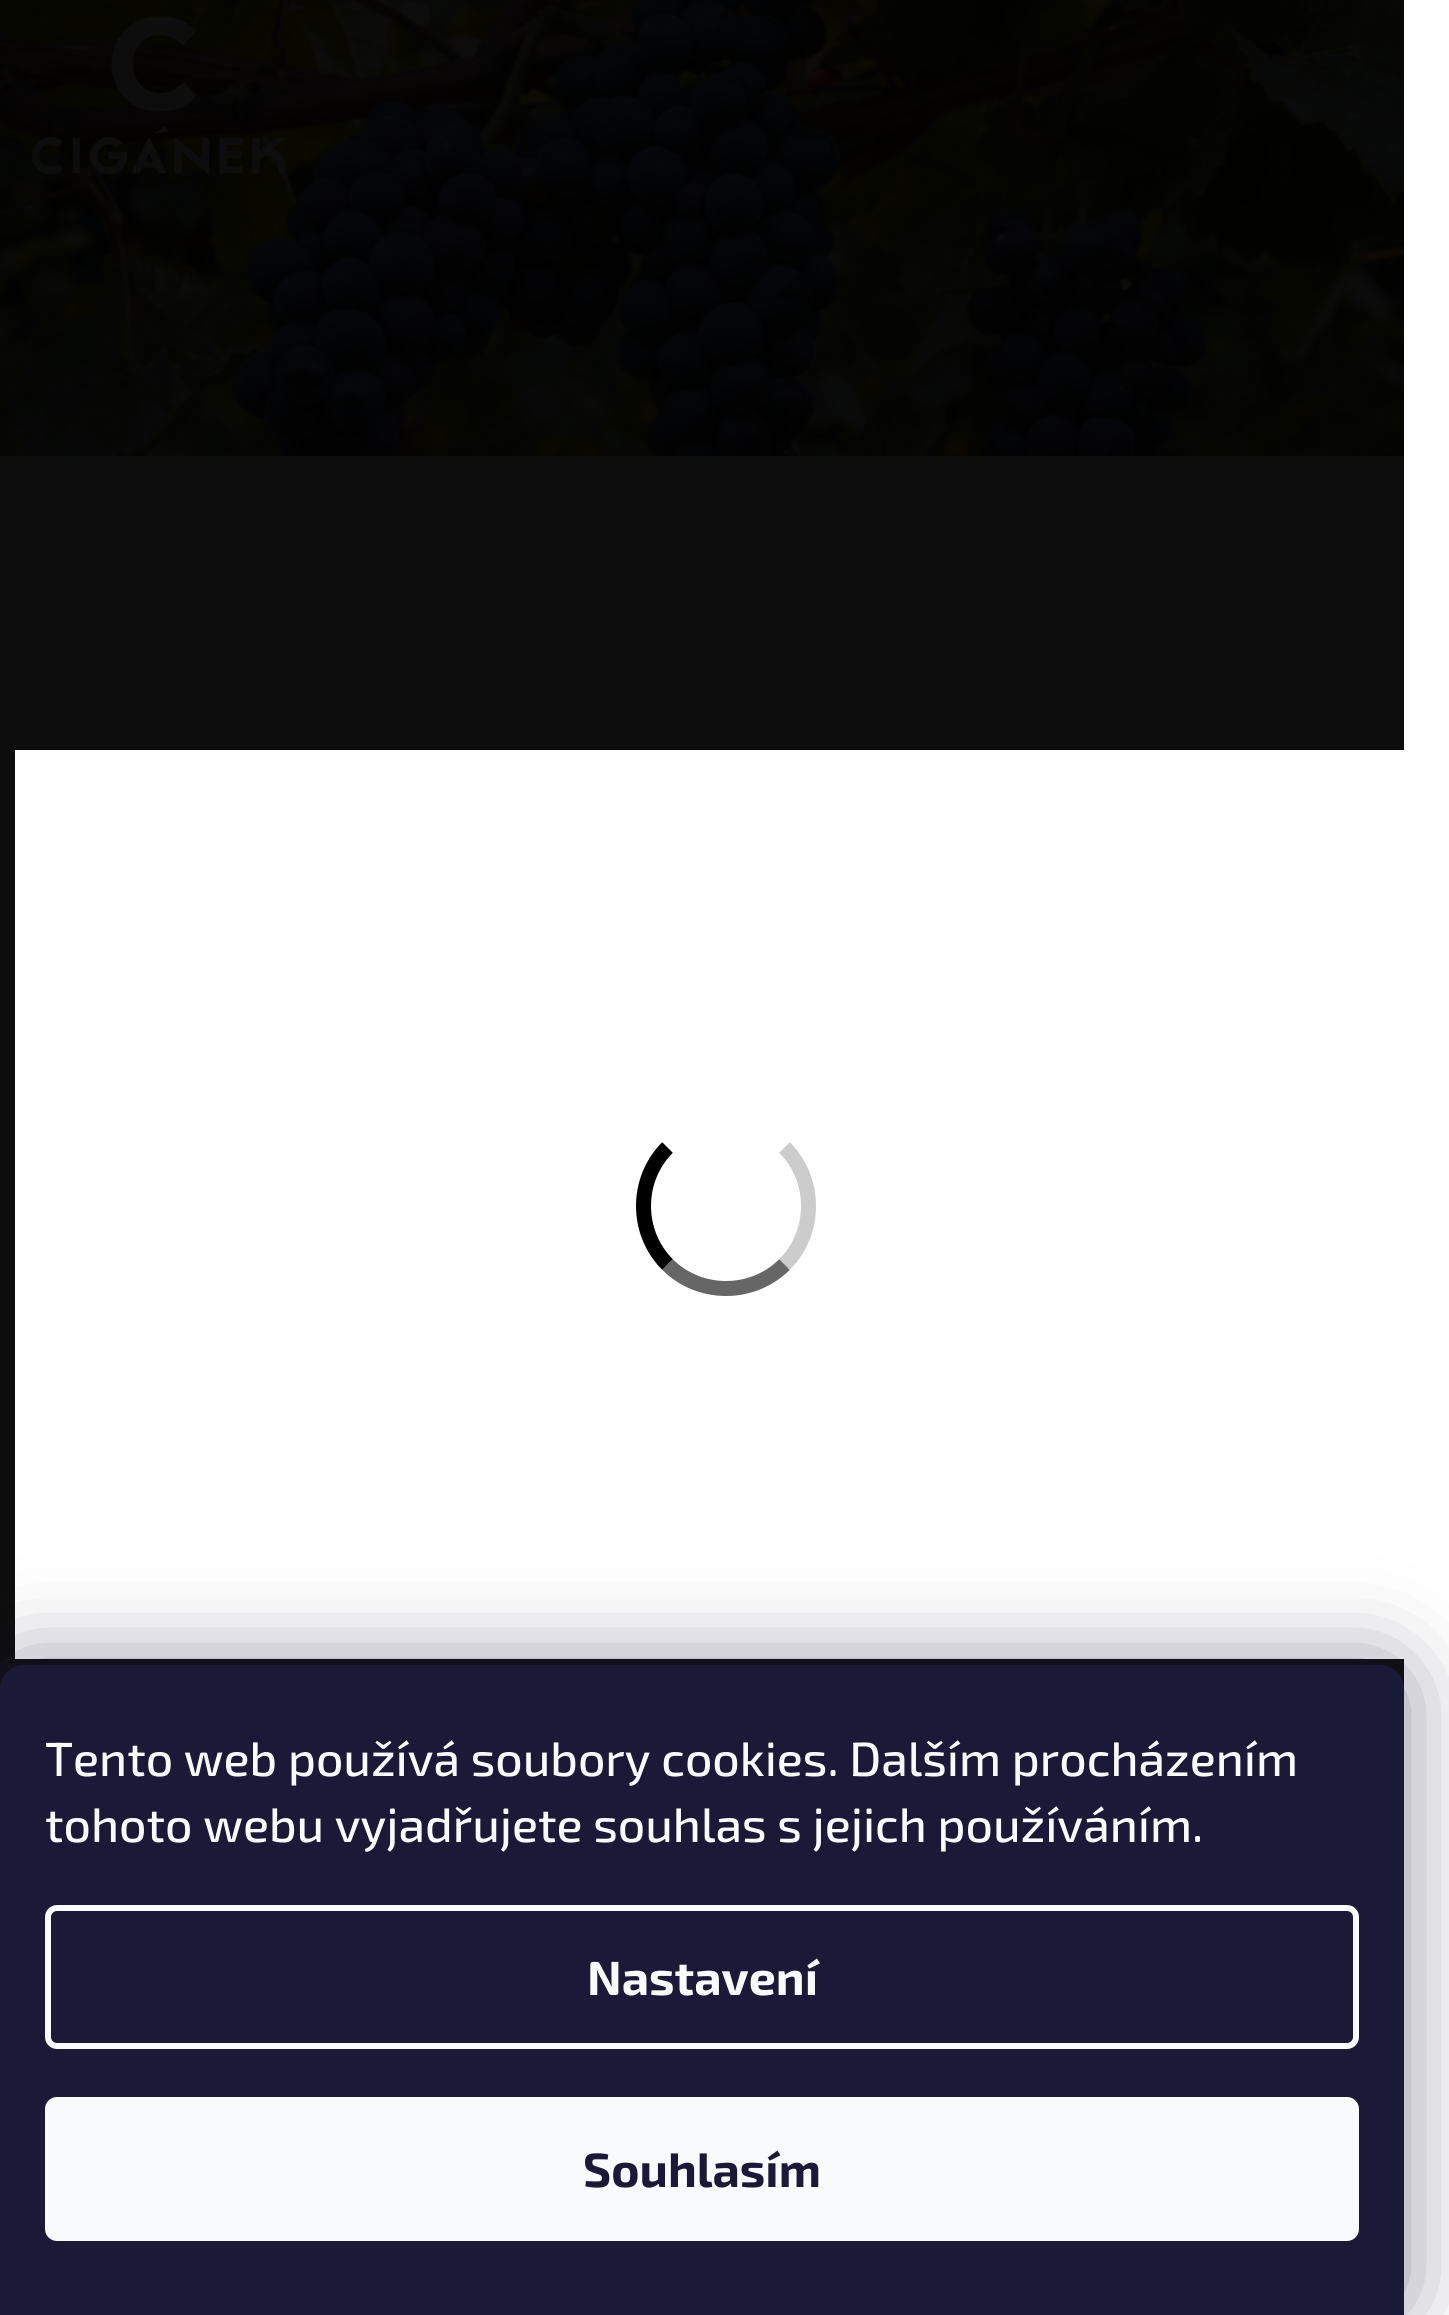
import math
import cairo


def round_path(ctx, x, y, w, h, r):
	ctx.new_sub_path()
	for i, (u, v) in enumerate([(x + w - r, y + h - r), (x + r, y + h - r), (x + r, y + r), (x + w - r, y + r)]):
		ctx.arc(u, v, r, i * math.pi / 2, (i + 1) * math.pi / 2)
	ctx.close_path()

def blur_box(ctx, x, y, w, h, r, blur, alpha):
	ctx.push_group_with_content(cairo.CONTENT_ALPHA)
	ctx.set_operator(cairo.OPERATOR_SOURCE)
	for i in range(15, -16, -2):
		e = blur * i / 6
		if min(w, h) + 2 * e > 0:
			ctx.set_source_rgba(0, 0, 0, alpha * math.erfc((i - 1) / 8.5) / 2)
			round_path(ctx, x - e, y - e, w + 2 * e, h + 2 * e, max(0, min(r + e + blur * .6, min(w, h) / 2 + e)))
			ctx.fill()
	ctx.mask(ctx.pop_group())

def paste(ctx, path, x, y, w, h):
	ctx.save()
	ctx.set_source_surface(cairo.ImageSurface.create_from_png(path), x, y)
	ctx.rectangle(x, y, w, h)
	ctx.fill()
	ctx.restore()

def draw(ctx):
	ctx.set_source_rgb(1, 1, 1)
	ctx.paint()
	ctx.set_source_rgb(0.051, 0.051, 0.051)
	ctx.rectangle(0, 456, 1404, 1233)
	ctx.fill()
	paste(ctx, 'media/1.png', 0, 0, 1404, 456)
	paste(ctx, 'media/2.png', 31, 15, 256, 160)
	ctx.set_source_rgb(1, 1, 1)
	ctx.rectangle(15, 750, 1389, 909)
	ctx.fill()
	ctx.new_path()
	ctx.move_to(784.5, 1147.5)
	ctx.curve_to(816.5, 1179.5, 816.5, 1232.5, 784.5, 1264.5)
	ctx.set_source_rgb(0.8, 0.8, 0.8)
	ctx.set_line_width(15)
	ctx.stroke()
	ctx.new_path()
	ctx.move_to(784.5, 1264.5)
	ctx.curve_to(752.5, 1296.5, 699.5, 1296.5, 667.5, 1264.5)
	ctx.set_source_rgb(0.4, 0.4, 0.4)
	ctx.stroke()
	ctx.new_path()
	ctx.move_to(667.5, 1264.5)
	ctx.curve_to(635.5, 1232.5, 635.5, 1179.5, 667.5, 1147.5)
	ctx.set_source_rgb(0, 0, 0)
	ctx.stroke()
	ctx.set_source_rgb(0.106, 0.098, 0.224)
	blur_box(ctx, 0, 1665, 1404, 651, 24, 45, 0.5)
	ctx.set_source_rgb(0.102, 0.098, 0.216)
	ctx.new_path()
	ctx.move_to(24, 1665)
	ctx.line_to(1380, 1665)
	ctx.curve_to(1393.5, 1665, 1404, 1675.5, 1404, 1689)
	ctx.line_to(1404, 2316)
	ctx.line_to(0, 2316)
	ctx.line_to(0, 1689)
	ctx.curve_to(0, 1675.5, 10.5, 1665, 24, 1665)
	ctx.close_path()
	ctx.fill()
	ctx.select_font_face('Exo 2 Medium')
	ctx.set_font_size(48)
	ctx.set_source_rgb(0.973, 0.98, 0.984)
	ctx.move_to(45, 1776)
	ctx.show_text('Tento web používá soubory cookies. Dalším procházením')
	ctx.move_to(45, 1842)
	ctx.show_text('tohoto webu vyjadřujete souhlas s jejich používáním.')
	round_path(ctx, 48, 1908, 1308, 138, 9)
	ctx.set_line_width(6)
	ctx.stroke()
	ctx.select_font_face('Exo 2', cairo.FONT_SLANT_NORMAL, cairo.FONT_WEIGHT_BOLD)
	ctx.move_to(587, 1995)
	ctx.show_text('Nastavení')
	round_path(ctx, 45, 2097, 1314, 144, 12)
	ctx.fill()
	ctx.set_source_rgb(0.102, 0.098, 0.216)
	ctx.move_to(583, 2187)
	ctx.show_text('Souhlasím')


surface = cairo.ImageSurface(cairo.FORMAT_RGB24, 1449, 2315)
ctx = cairo.Context(surface)
options = cairo.FontOptions()
options.set_hint_metrics(cairo.HINT_METRICS_OFF)
options.set_hint_style(cairo.HINT_STYLE_NONE)
ctx.set_font_options(options)
ctx.set_miter_limit(4)
draw(ctx)
surface.write_to_png('image.png')
